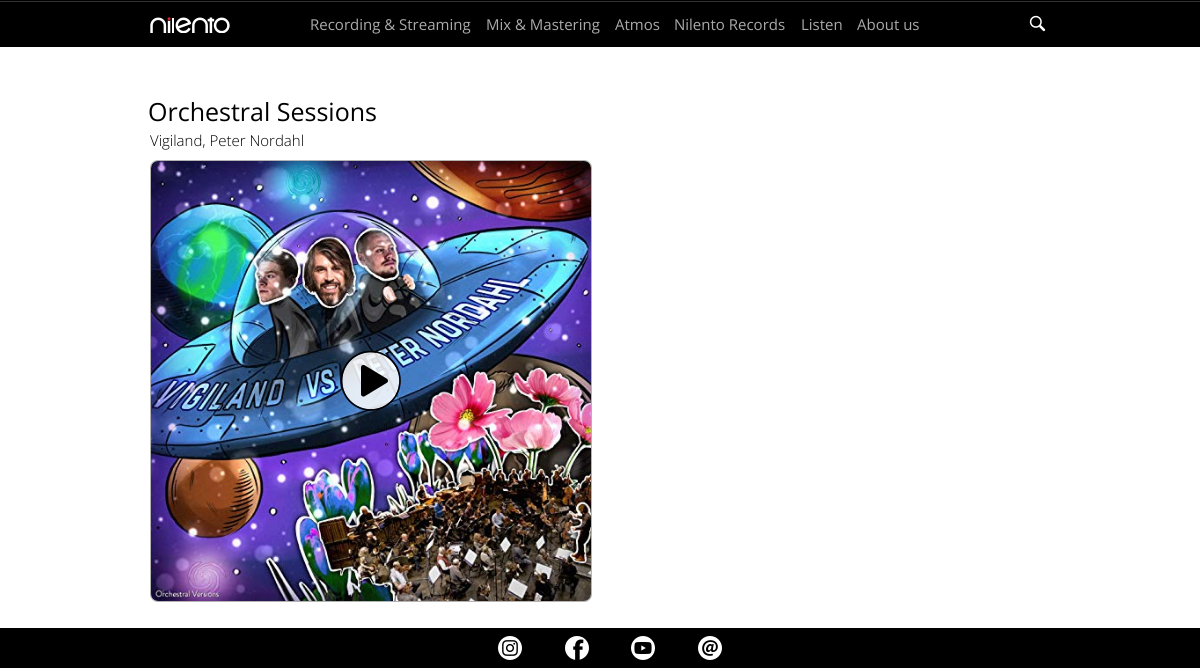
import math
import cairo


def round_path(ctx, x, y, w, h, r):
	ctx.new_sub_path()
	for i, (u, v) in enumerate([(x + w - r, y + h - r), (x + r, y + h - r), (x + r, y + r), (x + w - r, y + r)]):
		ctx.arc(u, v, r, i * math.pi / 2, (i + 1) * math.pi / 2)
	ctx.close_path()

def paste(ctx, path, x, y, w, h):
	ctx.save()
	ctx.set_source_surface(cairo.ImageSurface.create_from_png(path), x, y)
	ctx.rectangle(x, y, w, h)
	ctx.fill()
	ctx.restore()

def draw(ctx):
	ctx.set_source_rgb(1, 1, 1)
	ctx.paint()
	ctx.set_source_rgb(0, 0, 0)
	ctx.rectangle(0, 0, 1200, 47)
	ctx.fill()
	ctx.set_source_rgb(0.2, 0.2, 0.2)
	ctx.rectangle(0, 1, 1200, 1)
	ctx.fill()
	paste(ctx, 'media/1.png', 150, 17, 80, 16)
	ctx.select_font_face('Open Sans')
	ctx.set_font_size(15)
	ctx.set_source_rgb(0.667, 0.667, 0.667)
	for x, y, s in [
		(310, 30, 'Recording & Streaming'),
		(486, 30, 'Mix & Mastering'),
		(615, 30, 'Atmos'),
		(674, 30, 'Nilento Records'),
		(801, 30, 'Listen'),
		(857, 30, 'About us'),
	]:
		ctx.move_to(x, y)
		ctx.show_text(s)
	paste(ctx, 'media/2.png', 1029, 15, 17, 17)
	ctx.set_font_size(25)
	ctx.set_source_rgb(0, 0, 0)
	ctx.move_to(148, 121)
	ctx.show_text('Orchestral Sessions')
	ctx.select_font_face('Open Sans Light')
	ctx.set_font_size(15)
	ctx.move_to(150, 146)
	ctx.show_text('Vigiland, Peter Nordahl')
	round_path(ctx, 150.5, 160.5, 441, 441, 7.5)
	ctx.set_source_rgb(0.702, 0.702, 0.702)
	ctx.set_line_width(1)
	ctx.stroke()
	paste(ctx, 'media/3.png', 151, 161, 440, 440)
	paste(ctx, 'media/4.png', 340, 350, 61, 61)
	ctx.set_source_rgb(0, 0, 0)
	ctx.rectangle(0, 628, 1200, 40)
	ctx.fill()
	paste(ctx, 'media/5.png', 498, 636, 24, 24)
	paste(ctx, 'media/6.png', 565, 636, 24, 24)
	paste(ctx, 'media/7.png', 631, 636, 24, 24)
	paste(ctx, 'media/8.png', 698, 636, 24, 24)


surface = cairo.ImageSurface(cairo.FORMAT_RGB24, 1200, 668)
ctx = cairo.Context(surface)
options = cairo.FontOptions()
options.set_hint_metrics(cairo.HINT_METRICS_OFF)
options.set_hint_style(cairo.HINT_STYLE_NONE)
ctx.set_font_options(options)
ctx.set_miter_limit(4)
draw(ctx)
surface.write_to_png('image.png')
